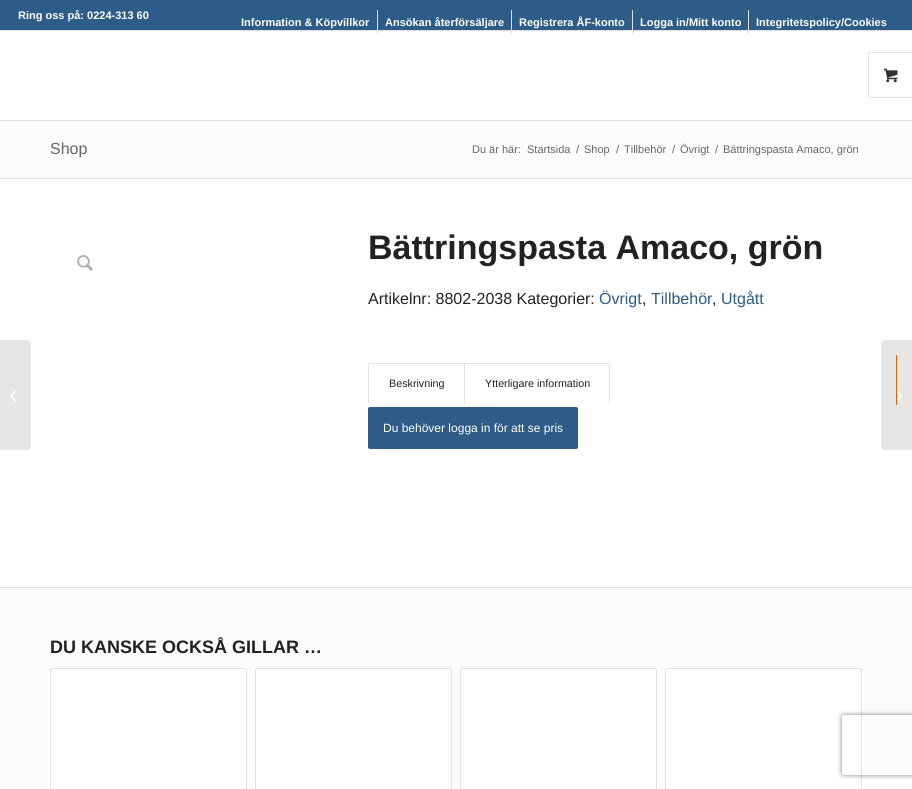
import math
import cairo


def round_path(ctx, x, y, w, h, r):
	ctx.new_sub_path()
	for i, (u, v) in enumerate([(x + w - r, y + h - r), (x + r, y + h - r), (x + r, y + r), (x + w - r, y + r)]):
		ctx.arc(u, v, r, i * math.pi / 2, (i + 1) * math.pi / 2)
	ctx.close_path()

def blur_box(ctx, x, y, w, h, r, blur, alpha):
	ctx.push_group_with_content(cairo.CONTENT_ALPHA)
	ctx.set_operator(cairo.OPERATOR_SOURCE)
	for i in range(15, -16, -2):
		e = blur * i / 6
		if min(w, h) + 2 * e > 0:
			ctx.set_source_rgba(0, 0, 0, alpha * math.erfc((i - 1) / 8.5) / 2)
			round_path(ctx, x - e, y - e, w + 2 * e, h + 2 * e, max(0, min(r + e + blur * .6, min(w, h) / 2 + e)))
			ctx.fill()
	ctx.mask(ctx.pop_group())

def paste(ctx, path, x, y, w, h):
	ctx.save()
	ctx.set_source_surface(cairo.ImageSurface.create_from_png(path), x, y)
	ctx.rectangle(x, y, w, h)
	ctx.fill()
	ctx.restore()

def draw(ctx):
	ctx.set_source_rgb(1, 1, 1)
	ctx.paint()
	ctx.set_source_rgb(0.176, 0.361, 0.533)
	ctx.rectangle(0, 0, 912, 30)
	ctx.fill()
	ctx.set_source_rgb(0.882, 0.882, 0.882)
	ctx.rectangle(0, 30, 912, 1)
	ctx.fill()
	ctx.select_font_face('Liberation Sans', cairo.FONT_SLANT_NORMAL, cairo.FONT_WEIGHT_BOLD)
	ctx.set_font_size(11)
	ctx.set_source_rgb(1, 1, 1)
	ctx.move_to(18, 19)
	ctx.show_text('Ring oss på: 0224-313 60')
	ctx.set_source_rgb(0.882, 0.882, 0.882)
	ctx.rectangle(377, 10, 1, 24)
	ctx.fill()
	ctx.set_source_rgb(1, 1, 1)
	ctx.move_to(241, 26)
	ctx.show_text('Information & Köpvillkor')
	ctx.set_source_rgb(0.882, 0.882, 0.882)
	ctx.rectangle(511, 10, 1, 24)
	ctx.fill()
	ctx.set_source_rgb(1, 1, 1)
	ctx.move_to(385, 26)
	ctx.show_text('Ansökan återförsäljare')
	ctx.set_source_rgb(0.882, 0.882, 0.882)
	ctx.rectangle(632, 10, 1, 24)
	ctx.fill()
	ctx.set_source_rgb(1, 1, 1)
	ctx.move_to(519, 26)
	ctx.show_text('Registrera ÅF-konto')
	ctx.set_source_rgb(0.882, 0.882, 0.882)
	ctx.rectangle(748, 10, 1, 24)
	ctx.fill()
	ctx.set_source_rgb(1, 1, 1)
	ctx.move_to(640, 26)
	ctx.show_text('Logga in/Mitt konto')
	ctx.move_to(756, 26)
	ctx.show_text('Integritetspolicy/Cookies')
	round_path(ctx, 868.5, 52.5, 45, 45, 1.5)
	ctx.set_source_rgb(0.882, 0.882, 0.882)
	ctx.set_line_width(1)
	ctx.stroke()
	ctx.set_source_rgb(1, 1, 1)
	ctx.rectangle(869, 53, 1, 44)
	ctx.fill()
	paste(ctx, 'media/1.png', 884, 68, 14, 15)
	ctx.set_source_rgb(0.902, 0.902, 0.902)
	ctx.new_path()
	ctx.move_to(0, 340)
	ctx.line_to(27, 340)
	ctx.curve_to(29, 340, 31, 342, 31, 344)
	ctx.line_to(31, 446)
	ctx.curve_to(31, 448, 29, 450, 27, 450)
	ctx.line_to(0, 450)
	ctx.close_path()
	ctx.fill()
	paste(ctx, 'media/2.png', 10, 390, 6, 12)
	ctx.set_source_rgb(0.988, 0.988, 0.988)
	ctx.rectangle(0, 121, 912, 57)
	ctx.fill()
	ctx.set_source_rgb(0.882, 0.882, 0.882)
	ctx.rectangle(0, 120, 912, 1)
	ctx.fill()
	ctx.select_font_face('Liberation Sans')
	ctx.set_font_size(16)
	ctx.set_source_rgb(0.4, 0.4, 0.4)
	ctx.move_to(50, 154)
	ctx.show_text('Shop')
	ctx.set_font_size(11)
	for x, y, s in [
		(472, 153, 'Du är här:'),
		(527, 153, 'Startsida'),
		(576, 153, '/'),
		(584, 153, 'Shop'),
		(616, 153, '/'),
		(624, 153, 'Tillbehör'),
		(672, 153, '/'),
		(680, 153, 'Övrigt'),
		(715, 153, '/'),
		(723, 153, 'Bättringspasta Amaco, grön'),
	]:
		ctx.move_to(x, y)
		ctx.show_text(s)
	ctx.set_source_rgb(0.882, 0.882, 0.882)
	ctx.rectangle(0, 178, 912, 1)
	ctx.fill()
	paste(ctx, 'media/3.png', 77, 255, 16, 16)
	ctx.select_font_face('Liberation Sans', cairo.FONT_SLANT_NORMAL, cairo.FONT_WEIGHT_BOLD)
	ctx.set_font_size(34)
	ctx.set_source_rgb(0.133, 0.133, 0.133)
	ctx.move_to(368, 259)
	ctx.show_text('Bättringspasta Amaco, grön')
	ctx.select_font_face('Liberation Sans')
	ctx.set_font_size(16)
	ctx.move_to(368, 304)
	ctx.show_text('Artikelnr: 8802-2038 Kategorier:')
	ctx.set_source_rgb(0.176, 0.361, 0.533)
	ctx.move_to(599, 304)
	ctx.show_text('Övrigt')
	ctx.set_source_rgb(0.133, 0.133, 0.133)
	ctx.move_to(642, 304)
	ctx.show_text(',')
	ctx.set_source_rgb(0.176, 0.361, 0.533)
	ctx.move_to(651, 304)
	ctx.show_text('Tillbehör')
	ctx.set_source_rgb(0.133, 0.133, 0.133)
	ctx.move_to(712, 304)
	ctx.show_text(',')
	ctx.set_source_rgb(0.176, 0.361, 0.533)
	ctx.move_to(721, 304)
	ctx.show_text('Utgått')
	ctx.set_source_rgb(0.882, 0.882, 0.882)
	ctx.rectangle(369, 363, 96, 1)
	ctx.rectangle(464, 363, 1, 40)
	ctx.rectangle(368, 364, 1, 39)
	ctx.fill()
	ctx.set_font_size(10.75)
	ctx.set_source_rgb(0.133, 0.133, 0.133)
	ctx.move_to(389, 387)
	ctx.show_text('Beskrivning')
	ctx.set_source_rgb(0.882, 0.882, 0.882)
	ctx.rectangle(464, 363, 145, 1)
	ctx.fill()
	ctx.rectangle(609, 364, 1, 39)
	ctx.fill()
	ctx.set_source_rgb(0.133, 0.133, 0.133)
	ctx.move_to(485, 387)
	ctx.show_text('Ytterligare information')
	ctx.set_source_rgb(0.176, 0.361, 0.533)
	round_path(ctx, 368, 407, 210, 42, 2)
	ctx.fill()
	ctx.set_font_size(12)
	ctx.set_source_rgb(1, 1, 1)
	ctx.move_to(383, 432)
	ctx.show_text('Du behöver logga in för att se pris')
	ctx.set_source_rgb(0.988, 0.988, 0.988)
	ctx.rectangle(0, 588, 912, 201)
	ctx.fill()
	ctx.set_source_rgb(0.882, 0.882, 0.882)
	ctx.rectangle(0, 587, 912, 1)
	ctx.fill()
	ctx.select_font_face('Liberation Sans', cairo.FONT_SLANT_NORMAL, cairo.FONT_WEIGHT_BOLD)
	ctx.set_font_size(18)
	ctx.set_source_rgb(0.133, 0.133, 0.133)
	ctx.move_to(50, 653)
	ctx.show_text('DU KANSKE OCKSÅ GILLAR …')
	ctx.set_source_rgb(1, 1, 1)
	round_path(ctx, 50.5, 668.5, 196, 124, 2.5)
	ctx.fill_preserve()
	ctx.set_source_rgb(0.882, 0.882, 0.882)
	ctx.stroke()
	ctx.set_source_rgb(1, 1, 1)
	round_path(ctx, 255.5, 668.5, 196, 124, 2.5)
	ctx.fill_preserve()
	ctx.set_source_rgb(0.882, 0.882, 0.882)
	ctx.stroke()
	ctx.set_source_rgb(1, 1, 1)
	round_path(ctx, 460.5, 668.5, 196, 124, 2.5)
	ctx.fill_preserve()
	ctx.set_source_rgb(0.882, 0.882, 0.882)
	ctx.stroke()
	ctx.set_source_rgb(1, 1, 1)
	round_path(ctx, 665.5, 668.5, 196, 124, 2.5)
	ctx.fill_preserve()
	ctx.set_source_rgb(0.882, 0.882, 0.882)
	ctx.stroke()
	ctx.set_source_rgb(0.902, 0.902, 0.902)
	ctx.new_path()
	ctx.move_to(885, 340)
	ctx.line_to(912, 340)
	ctx.line_to(912, 450)
	ctx.line_to(885, 450)
	ctx.curve_to(883, 450, 881, 448, 881, 446)
	ctx.line_to(881, 344)
	ctx.curve_to(881, 342, 883, 340, 885, 340)
	ctx.close_path()
	ctx.fill()
	ctx.set_source_rgb(0.937, 0.373, 0)
	ctx.rectangle(896, 355, 1, 50)
	ctx.fill()
	paste(ctx, 'media/4.png', 897, 390, 5, 12)
	ctx.save()
	ctx.set_fill_rule(cairo.FILL_RULE_EVEN_ODD)
	ctx.new_path()
	ctx.move_to(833, 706)
	ctx.line_to(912, 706)
	ctx.line_to(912, 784)
	ctx.line_to(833, 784)
	ctx.close_path()
	ctx.move_to(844, 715)
	ctx.line_to(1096, 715)
	ctx.curve_to(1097, 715, 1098, 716, 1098, 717)
	ctx.line_to(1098, 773)
	ctx.curve_to(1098, 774, 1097, 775, 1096, 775)
	ctx.line_to(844, 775)
	ctx.curve_to(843, 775, 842, 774, 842, 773)
	ctx.line_to(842, 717)
	ctx.curve_to(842, 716, 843, 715, 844, 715)
	ctx.close_path()
	ctx.clip()
	ctx.set_source_rgb(0.502, 0.502, 0.502)
	blur_box(ctx, 842, 715, 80, 60, 2, 2.5, 1)
	ctx.restore()


surface = cairo.ImageSurface(cairo.FORMAT_RGB24, 912, 789)
ctx = cairo.Context(surface)
options = cairo.FontOptions()
options.set_hint_metrics(cairo.HINT_METRICS_OFF)
options.set_hint_style(cairo.HINT_STYLE_NONE)
ctx.set_font_options(options)
ctx.set_miter_limit(4)
draw(ctx)
surface.write_to_png('image.png')
